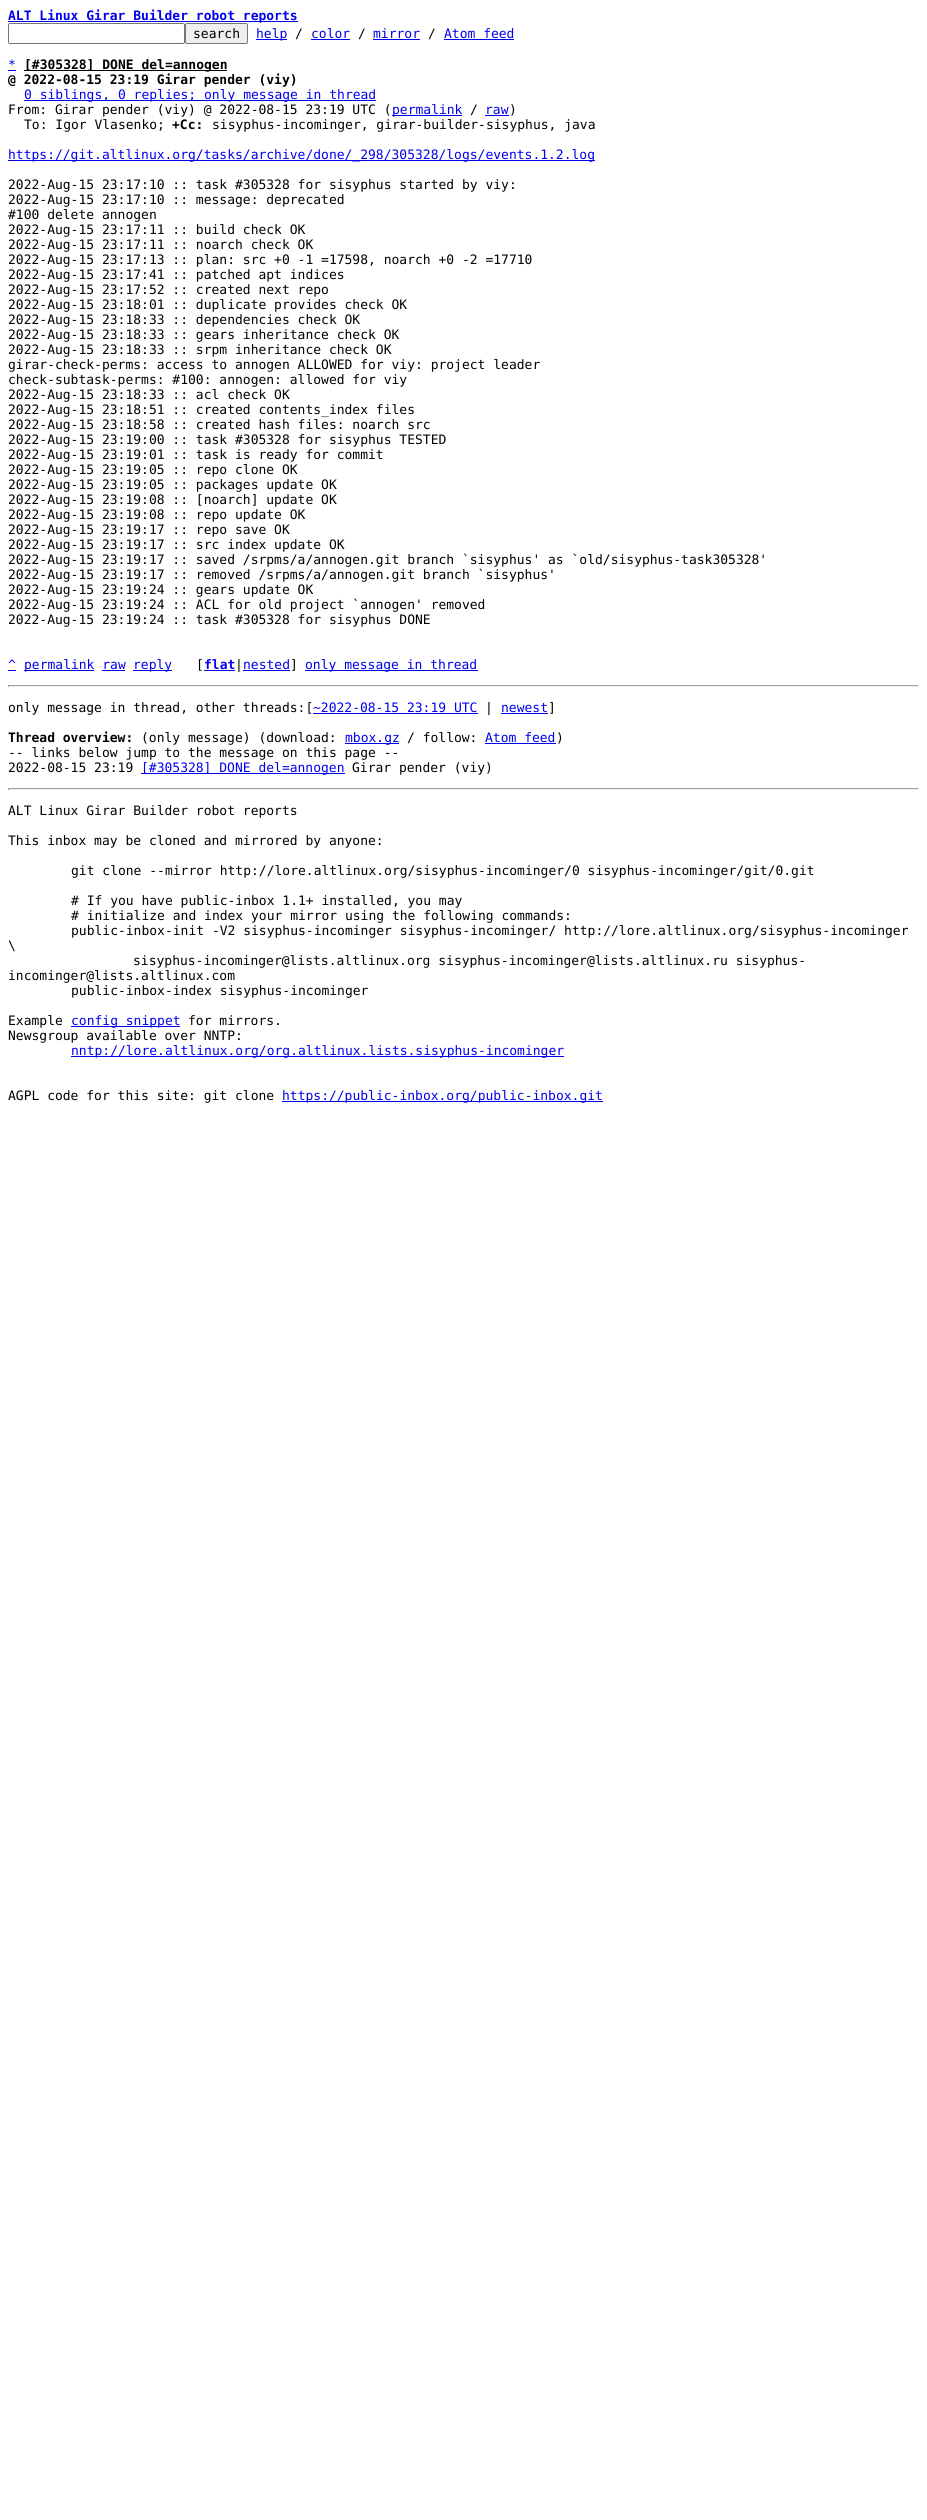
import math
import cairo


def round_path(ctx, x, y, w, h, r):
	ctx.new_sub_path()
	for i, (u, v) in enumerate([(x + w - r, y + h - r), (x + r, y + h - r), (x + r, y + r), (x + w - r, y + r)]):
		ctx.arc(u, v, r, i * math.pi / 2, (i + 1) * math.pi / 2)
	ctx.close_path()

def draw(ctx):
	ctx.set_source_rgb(1, 1, 1)
	ctx.paint()
	ctx.set_source_rgb(0, 0, 0.933)
	ctx.rectangle(8, 21, 290, 1)
	ctx.fill()
	ctx.select_font_face('DejaVu Sans Mono', cairo.FONT_SLANT_NORMAL, cairo.FONT_WEIGHT_BOLD)
	ctx.set_font_size(13)
	ctx.move_to(8, 20)
	ctx.show_text('ALT Linux Girar Builder robot reports')
	round_path(ctx, 8.5, 23.5, 176, 20, 1.5)
	ctx.set_source_rgb(0.463, 0.463, 0.463)
	ctx.set_line_width(1)
	ctx.stroke()
	ctx.set_source_rgb(0.937, 0.937, 0.937)
	round_path(ctx, 185.5, 23.5, 62, 20, 1.5)
	ctx.fill_preserve()
	ctx.set_source_rgb(0.463, 0.463, 0.463)
	ctx.stroke()
	ctx.select_font_face('DejaVu Sans Mono')
	ctx.set_source_rgb(0, 0, 0)
	ctx.move_to(193, 38)
	ctx.show_text('search')
	ctx.set_source_rgb(0, 0, 0.933)
	ctx.rectangle(256, 39, 31, 1)
	ctx.fill()
	ctx.move_to(256, 38)
	ctx.show_text('help')
	ctx.set_source_rgb(0, 0, 0)
	ctx.move_to(295, 38)
	ctx.show_text('/')
	ctx.set_source_rgb(0, 0, 0.933)
	ctx.move_to(311, 38)
	ctx.show_text('color')
	ctx.rectangle(311, 39, 39, 1)
	ctx.fill()
	ctx.set_source_rgb(0, 0, 0)
	ctx.move_to(358, 38)
	ctx.show_text('/')
	ctx.set_source_rgb(0, 0, 0.933)
	ctx.move_to(373, 38)
	ctx.show_text('mirror')
	ctx.rectangle(373, 39, 47, 1)
	ctx.fill()
	ctx.set_source_rgb(0, 0, 0)
	ctx.move_to(428, 38)
	ctx.show_text('/')
	ctx.set_source_rgb(0, 0, 0.933)
	ctx.move_to(444, 38)
	ctx.show_text('Atom feed')
	ctx.rectangle(444, 39, 70, 1)
	ctx.fill()
	ctx.move_to(8, 69)
	ctx.show_text('*')
	ctx.rectangle(8, 70, 8, 1)
	ctx.fill()
	ctx.set_source_rgb(0, 0, 0)
	ctx.rectangle(24, 70, 203, 1)
	ctx.fill()
	ctx.select_font_face('DejaVu Sans Mono', cairo.FONT_SLANT_NORMAL, cairo.FONT_WEIGHT_BOLD)
	ctx.move_to(24, 69)
	ctx.show_text('[#305328] DONE del=annogen')
	ctx.move_to(8, 84)
	ctx.show_text('@ 2022-08-15 23:19 Girar pender (viy)')
	ctx.set_source_rgb(0, 0, 0.933)
	ctx.rectangle(24, 100, 352, 1)
	ctx.fill()
	ctx.select_font_face('DejaVu Sans Mono')
	ctx.move_to(24, 99)
	ctx.show_text('0 siblings, 0 replies; only message in thread')
	ctx.set_source_rgb(0, 0, 0)
	ctx.move_to(8, 114)
	ctx.show_text('From: Girar pender (viy) @ 2022-08-15 23:19 UTC (')
	ctx.set_source_rgb(0, 0, 0.933)
	ctx.rectangle(392, 115, 70, 1)
	ctx.fill()
	ctx.move_to(392, 114)
	ctx.show_text('permalink')
	ctx.set_source_rgb(0, 0, 0)
	ctx.move_to(470, 114)
	ctx.show_text('/')
	ctx.set_source_rgb(0, 0, 0.933)
	ctx.move_to(485, 114)
	ctx.show_text('raw')
	ctx.rectangle(485, 115, 24, 1)
	ctx.fill()
	ctx.set_source_rgb(0, 0, 0)
	ctx.move_to(509, 114)
	ctx.show_text(')')
	ctx.move_to(24, 129)
	ctx.show_text('To: Igor Vlasenko;')
	ctx.select_font_face('DejaVu Sans Mono', cairo.FONT_SLANT_NORMAL, cairo.FONT_WEIGHT_BOLD)
	ctx.move_to(172, 129)
	ctx.show_text('+Cc:')
	ctx.select_font_face('DejaVu Sans Mono')
	ctx.move_to(212, 129)
	ctx.show_text('sisyphus-incominger, girar-builder-sisyphus, java')
	ctx.set_source_rgb(0, 0, 0.933)
	ctx.rectangle(8, 160, 587, 1)
	ctx.fill()
	ctx.move_to(8, 159)
	ctx.show_text('https://git.altlinux.org/tasks/archive/done/_298/305328/logs/events.1.2.log')
	ctx.set_source_rgb(0, 0, 0)
	for x, y, s in [
		(8, 189, '2022-Aug-15 23:17:10 :: task #305328 for sisyphus started by viy:'),
		(8, 204, '2022-Aug-15 23:17:10 :: message: deprecated'),
		(8, 219, '#100 delete annogen'),
		(8, 234, '2022-Aug-15 23:17:11 :: build check OK'),
		(8, 249, '2022-Aug-15 23:17:11 :: noarch check OK'),
		(8, 264, '2022-Aug-15 23:17:13 :: plan: src +0 -1 =17598, noarch +0 -2 =17710'),
		(8, 279, '2022-Aug-15 23:17:41 :: patched apt indices'),
		(8, 294, '2022-Aug-15 23:17:52 :: created next repo'),
		(8, 309, '2022-Aug-15 23:18:01 :: duplicate provides check OK'),
		(8, 324, '2022-Aug-15 23:18:33 :: dependencies check OK'),
		(8, 339, '2022-Aug-15 23:18:33 :: gears inheritance check OK'),
		(8, 354, '2022-Aug-15 23:18:33 :: srpm inheritance check OK'),
		(8, 369, 'girar-check-perms: access to annogen ALLOWED for viy: project leader'),
		(8, 384, 'check-subtask-perms: #100: annogen: allowed for viy'),
		(8, 399, '2022-Aug-15 23:18:33 :: acl check OK'),
		(8, 414, '2022-Aug-15 23:18:51 :: created contents_index files'),
		(8, 429, '2022-Aug-15 23:18:58 :: created hash files: noarch src'),
		(8, 444, '2022-Aug-15 23:19:00 :: task #305328 for sisyphus TESTED'),
		(8, 459, '2022-Aug-15 23:19:01 :: task is ready for commit'),
		(8, 474, '2022-Aug-15 23:19:05 :: repo clone OK'),
		(8, 489, '2022-Aug-15 23:19:05 :: packages update OK'),
		(8, 504, '2022-Aug-15 23:19:08 :: [noarch] update OK'),
		(8, 519, '2022-Aug-15 23:19:08 :: repo update OK'),
		(8, 534, '2022-Aug-15 23:19:17 :: repo save OK'),
		(8, 549, '2022-Aug-15 23:19:17 :: src index update OK'),
		(8, 564, '2022-Aug-15 23:19:17 :: saved /srpms/a/annogen.git branch `sisyphus\' as `old/sisyphus-task305328\''),
		(8, 579, '2022-Aug-15 23:19:17 :: removed /srpms/a/annogen.git branch `sisyphus\''),
		(8, 594, '2022-Aug-15 23:19:24 :: gears update OK'),
		(8, 609, '2022-Aug-15 23:19:24 :: ACL for old project `annogen\' removed'),
		(8, 624, '2022-Aug-15 23:19:24 :: task #305328 for sisyphus DONE'),
	]:
		ctx.move_to(x, y)
		ctx.show_text(s)
	ctx.set_source_rgb(0, 0, 0.933)
	ctx.move_to(8, 669)
	ctx.show_text('^')
	ctx.rectangle(8, 670, 8, 1)
	ctx.fill()
	ctx.rectangle(24, 670, 70, 1)
	ctx.fill()
	ctx.move_to(24, 669)
	ctx.show_text('permalink raw')
	ctx.rectangle(133, 670, 39, 1)
	ctx.fill()
	ctx.move_to(133, 669)
	ctx.show_text('reply')
	ctx.set_source_rgb(0, 0, 0)
	ctx.move_to(196, 669)
	ctx.show_text('[')
	ctx.select_font_face('DejaVu Sans Mono', cairo.FONT_SLANT_NORMAL, cairo.FONT_WEIGHT_BOLD)
	ctx.set_source_rgb(0, 0, 0.933)
	ctx.move_to(204, 669)
	ctx.show_text('flat')
	ctx.rectangle(204, 670, 31, 1)
	ctx.fill()
	ctx.select_font_face('DejaVu Sans Mono')
	ctx.set_source_rgb(0, 0, 0)
	ctx.move_to(235, 669)
	ctx.show_text('|')
	ctx.set_source_rgb(0, 0, 0.933)
	ctx.move_to(243, 669)
	ctx.show_text('nested')
	ctx.rectangle(243, 670, 47, 1)
	ctx.fill()
	ctx.set_source_rgb(0, 0, 0)
	ctx.move_to(290, 669)
	ctx.show_text(']')
	ctx.set_source_rgb(0, 0, 0.933)
	ctx.rectangle(305, 670, 173, 1)
	ctx.fill()
	ctx.move_to(305, 669)
	ctx.show_text('only message in thread')
	ctx.rectangle(102, 670, 23, 1)
	ctx.fill()
	ctx.set_source_rgb(0.624, 0.624, 0.624)
	ctx.rectangle(8, 685, 911, 1)
	ctx.fill()
	ctx.set_source_rgb(0.933, 0.933, 0.933)
	ctx.rectangle(918, 685, 1, 2)
	ctx.rectangle(8, 686, 911, 1)
	ctx.fill()
	ctx.set_source_rgb(0.624, 0.624, 0.624)
	ctx.rectangle(8, 685, 1, 2)
	ctx.fill()
	ctx.set_source_rgb(0, 0, 0)
	ctx.move_to(8, 712)
	ctx.show_text('only message in thread, other threads:[')
	ctx.set_source_rgb(0, 0, 0.933)
	ctx.move_to(313, 712)
	ctx.show_text('~2022-08-15 23:19 UTC')
	ctx.rectangle(313, 713, 165, 1)
	ctx.fill()
	ctx.set_source_rgb(0, 0, 0)
	ctx.move_to(485, 712)
	ctx.show_text('|')
	ctx.set_source_rgb(0, 0, 0.933)
	ctx.move_to(501, 712)
	ctx.show_text('newest')
	ctx.rectangle(501, 713, 47, 1)
	ctx.fill()
	ctx.set_source_rgb(0, 0, 0)
	ctx.move_to(548, 712)
	ctx.show_text(']')
	ctx.select_font_face('DejaVu Sans Mono', cairo.FONT_SLANT_NORMAL, cairo.FONT_WEIGHT_BOLD)
	ctx.move_to(8, 742)
	ctx.show_text('Thread overview:')
	ctx.select_font_face('DejaVu Sans Mono')
	ctx.move_to(141, 742)
	ctx.show_text('(only message) (download:')
	ctx.set_source_rgb(0, 0, 0.933)
	ctx.rectangle(345, 743, 54, 1)
	ctx.fill()
	ctx.move_to(345, 742)
	ctx.show_text('mbox.gz')
	ctx.set_source_rgb(0, 0, 0)
	ctx.move_to(407, 742)
	ctx.show_text('/ follow:')
	ctx.set_source_rgb(0, 0, 0.933)
	ctx.move_to(485, 742)
	ctx.show_text('Atom feed')
	ctx.rectangle(485, 743, 71, 1)
	ctx.fill()
	ctx.set_source_rgb(0, 0, 0)
	for x, y, s in [
		(556, 742, ')'),
		(8, 757, '-- links below jump to the message on this page --'),
		(8, 772, '2022-08-15 23:19'),
	]:
		ctx.move_to(x, y)
		ctx.show_text(s)
	ctx.set_source_rgb(0, 0, 0.933)
	ctx.rectangle(141, 773, 204, 1)
	ctx.fill()
	ctx.move_to(141, 772)
	ctx.show_text('[#305328] DONE del=annogen')
	ctx.set_source_rgb(0, 0, 0)
	ctx.move_to(352, 772)
	ctx.show_text('Girar pender (viy)')
	ctx.set_source_rgb(0.624, 0.624, 0.624)
	ctx.rectangle(8, 788, 911, 1)
	ctx.fill()
	ctx.set_source_rgb(0.933, 0.933, 0.933)
	ctx.rectangle(918, 788, 1, 2)
	ctx.rectangle(8, 789, 911, 1)
	ctx.fill()
	ctx.set_source_rgb(0.624, 0.624, 0.624)
	ctx.rectangle(8, 788, 1, 2)
	ctx.fill()
	ctx.set_source_rgb(0, 0, 0)
	for x, y, s in [
		(8, 815, 'ALT Linux Girar Builder robot reports'),
		(8, 845, 'This inbox may be cloned and mirrored by anyone:'),
		(71, 875, 'git clone --mirror http://lore.altlinux.org/sisyphus-incominger/0 sisyphus-incominger/git/0.git'),
		(71, 905, '# If you have public-inbox 1.1+ installed, you may'),
		(71, 920, '# initialize and index your mirror using the following commands:'),
		(71, 935, 'public-inbox-init -V2 sisyphus-incominger sisyphus-incominger/ http://lore.altlinux.org/sisyphus-incominger'),
		(8, 950, '\\'),
		(133, 965, 'sisyphus-incominger@lists.altlinux.org sisyphus-incominger@lists.altlinux.ru sisyphus-'),
		(8, 980, 'incominger@lists.altlinux.com'),
		(71, 995, 'public-inbox-index sisyphus-incominger'),
		(8, 1025, 'Example'),
	]:
		ctx.move_to(x, y)
		ctx.show_text(s)
	ctx.set_source_rgb(0, 0, 0.933)
	ctx.rectangle(71, 1026, 109, 1)
	ctx.fill()
	ctx.move_to(71, 1025)
	ctx.show_text('config snippet')
	ctx.set_source_rgb(0, 0, 0)
	ctx.move_to(188, 1025)
	ctx.show_text('for mirrors.')
	ctx.move_to(8, 1040)
	ctx.show_text('Newsgroup available over NNTP:')
	ctx.set_source_rgb(0, 0, 0.933)
	ctx.rectangle(71, 1056, 493, 1)
	ctx.fill()
	ctx.move_to(71, 1055)
	ctx.show_text('nntp://lore.altlinux.org/org.altlinux.lists.sisyphus-incominger')
	ctx.set_source_rgb(0, 0, 0)
	ctx.move_to(8, 1100)
	ctx.show_text('AGPL code for this site: git clone')
	ctx.set_source_rgb(0, 0, 0.933)
	ctx.rectangle(282, 1101, 321, 1)
	ctx.fill()
	ctx.move_to(282, 1100)
	ctx.show_text('https://public-inbox.org/public-inbox.git')


surface = cairo.ImageSurface(cairo.FORMAT_RGB24, 927, 2520)
ctx = cairo.Context(surface)
options = cairo.FontOptions()
options.set_hint_metrics(cairo.HINT_METRICS_OFF)
options.set_hint_style(cairo.HINT_STYLE_NONE)
ctx.set_font_options(options)
ctx.set_miter_limit(4)
draw(ctx)
surface.write_to_png('image.png')
